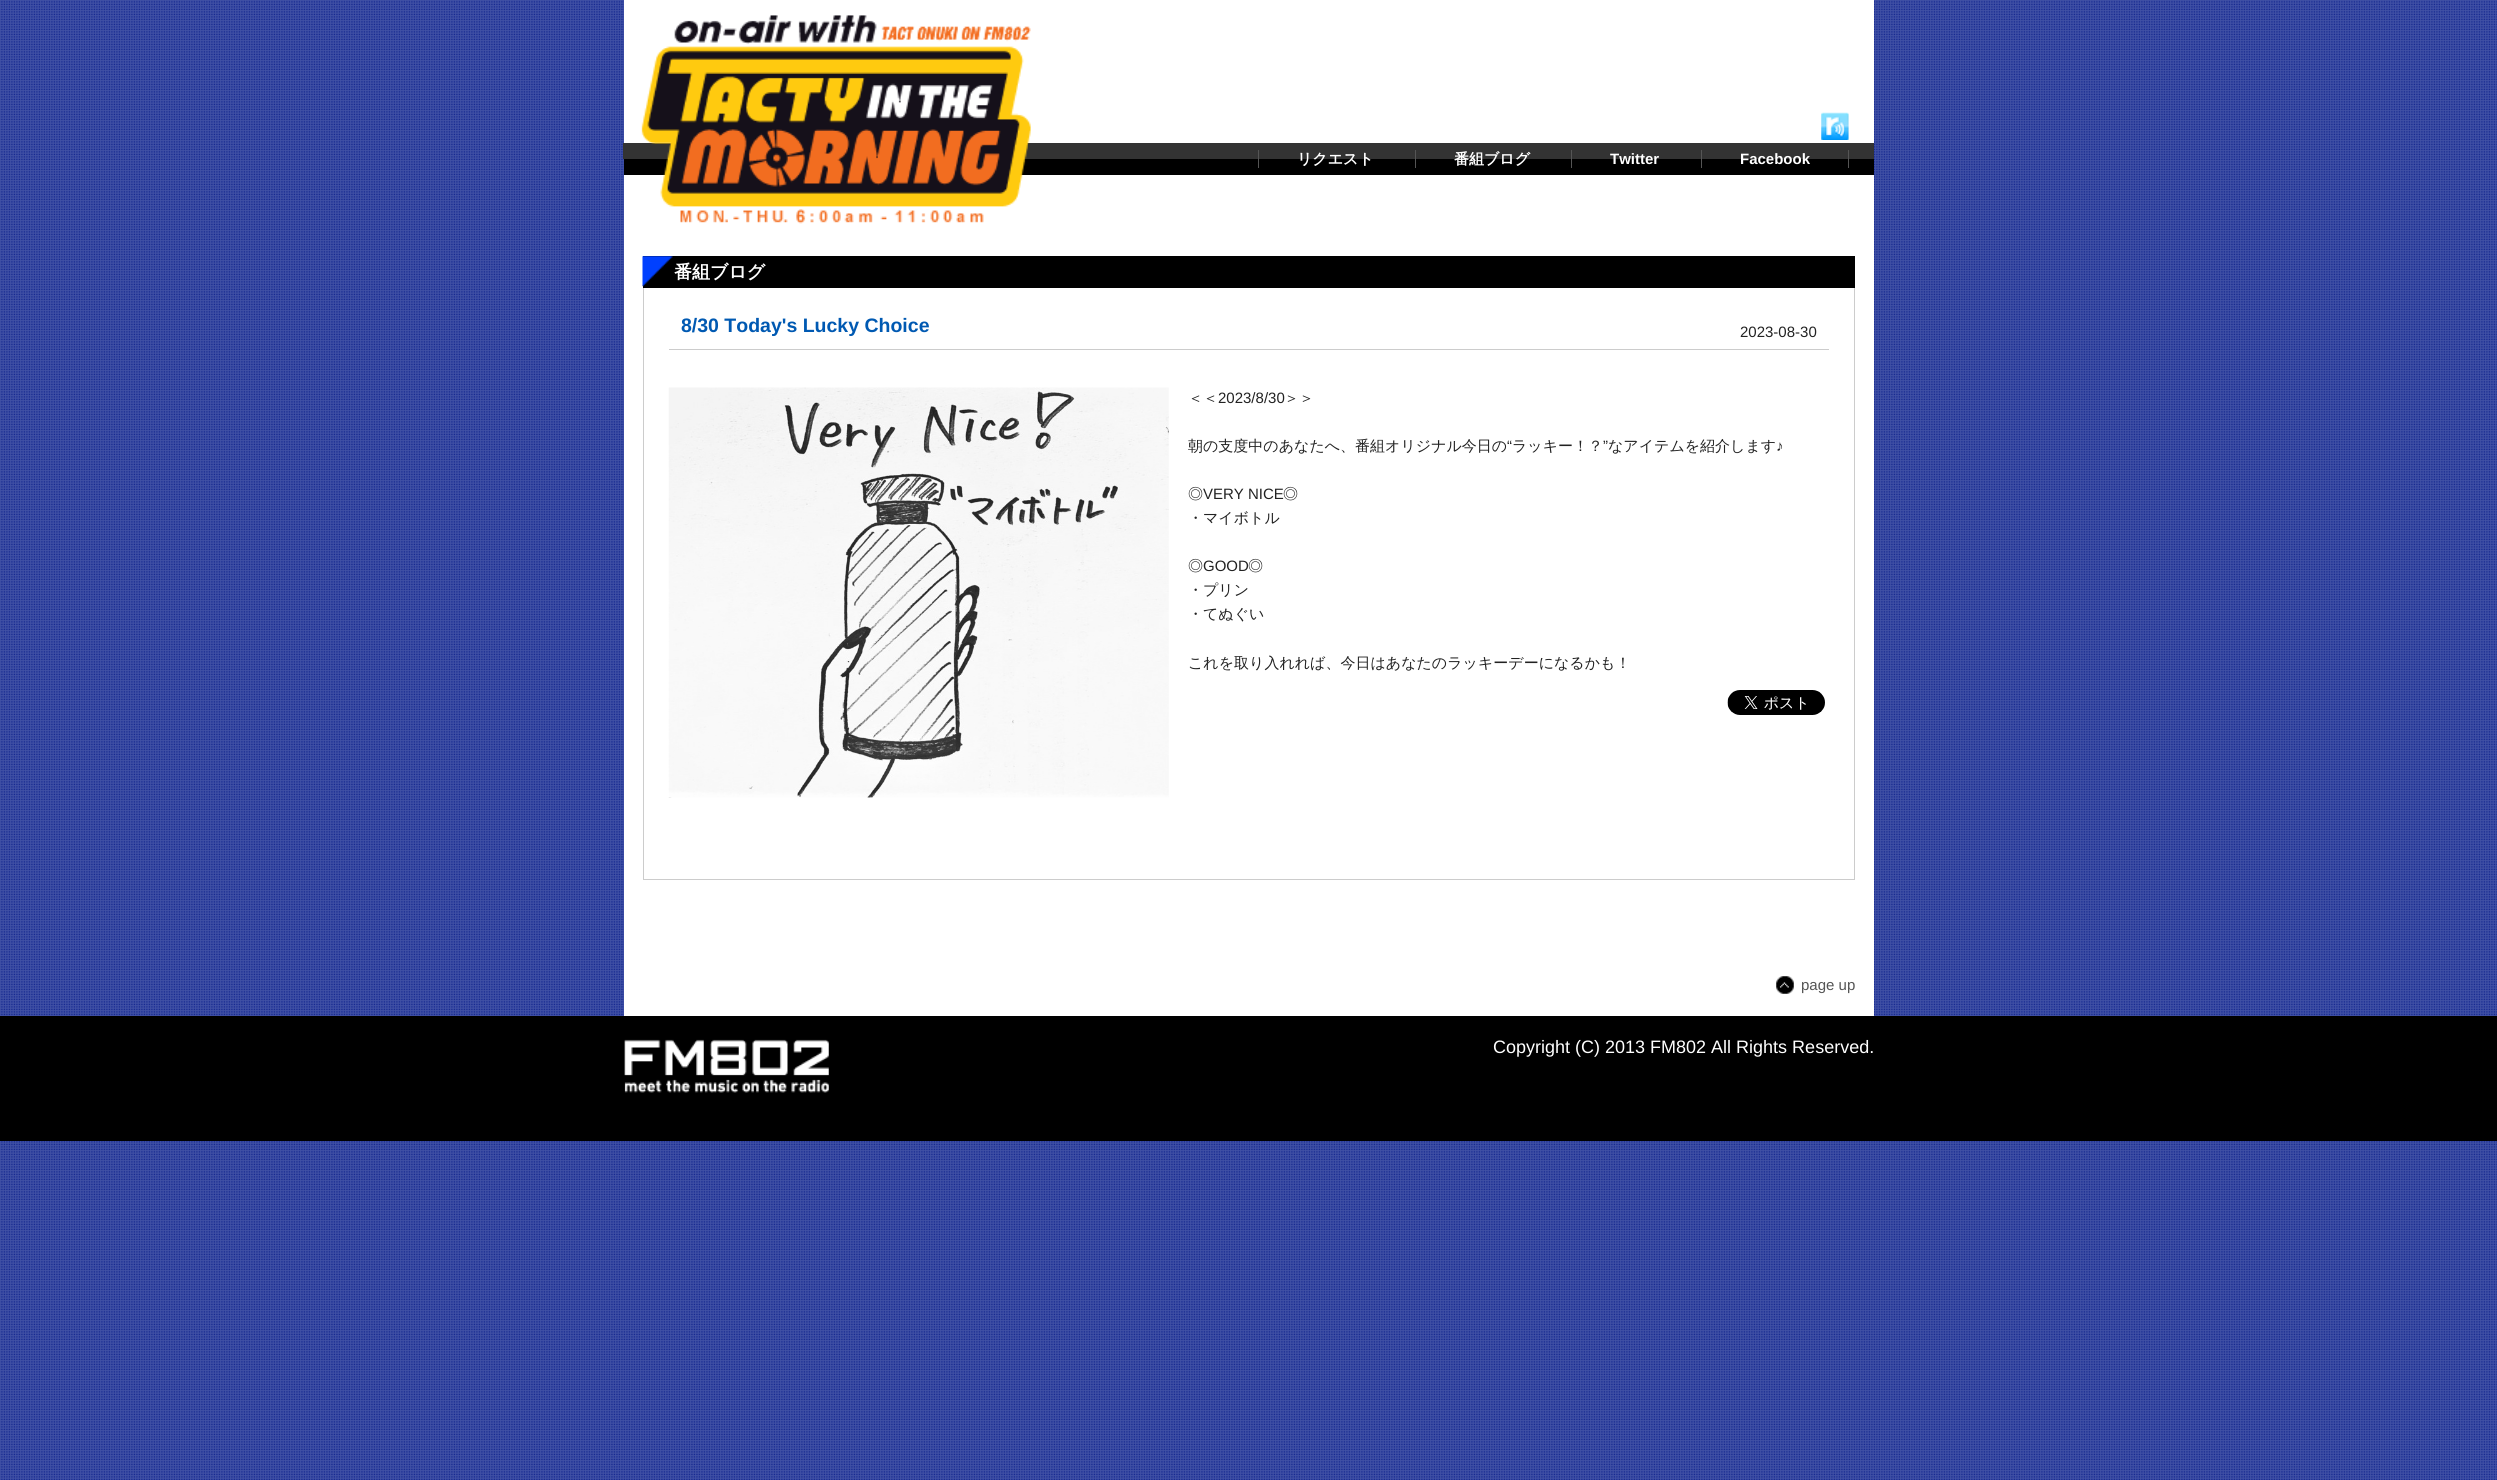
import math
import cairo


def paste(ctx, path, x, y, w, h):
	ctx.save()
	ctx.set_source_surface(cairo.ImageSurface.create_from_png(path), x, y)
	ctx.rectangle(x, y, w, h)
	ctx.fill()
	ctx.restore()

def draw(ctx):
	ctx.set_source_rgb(1, 1, 1)
	ctx.paint()
	paste(ctx, 'media/1.png', 0, 0, 2497, 1480)
	ctx.set_source_rgb(1, 1, 1)
	ctx.rectangle(624, 0, 1250, 1016)
	ctx.fill()
	ctx.set_source_rgb(0, 0, 0)
	ctx.rectangle(624, 159, 1250, 16)
	ctx.fill()
	ctx.set_source_rgb(0.2, 0.2, 0.2)
	ctx.rectangle(623, 143, 1251, 16)
	ctx.fill()
	paste(ctx, 'media/2.png', 641, 15, 390, 209)
	paste(ctx, 'media/3.png', 1821, 112, 28, 28)
	ctx.select_font_face('WenQuanYi Zen Hei', cairo.FONT_SLANT_NORMAL, cairo.FONT_WEIGHT_BOLD)
	ctx.set_font_size(15)
	ctx.set_source_rgb(1, 1, 1)
	ctx.move_to(1297, 164)
	ctx.show_text('リクエスト')
	ctx.set_source_rgb(0.333, 0.333, 0.333)
	ctx.rectangle(1258, 150, 1, 18)
	ctx.fill()
	ctx.set_source_rgb(1, 1, 1)
	ctx.move_to(1454, 164)
	ctx.show_text('番組ブログ')
	ctx.set_source_rgb(0.333, 0.333, 0.333)
	ctx.rectangle(1415, 150, 1, 18)
	ctx.fill()
	ctx.select_font_face('Liberation Sans', cairo.FONT_SLANT_NORMAL, cairo.FONT_WEIGHT_BOLD)
	ctx.set_source_rgb(1, 1, 1)
	ctx.move_to(1610, 164)
	ctx.show_text('Twitter')
	ctx.set_source_rgb(0.333, 0.333, 0.333)
	ctx.rectangle(1571, 150, 1, 18)
	ctx.fill()
	ctx.set_source_rgb(1, 1, 1)
	ctx.move_to(1740, 164)
	ctx.show_text('Facebook')
	ctx.set_source_rgb(0.333, 0.333, 0.333)
	ctx.rectangle(1848, 150, 1, 18)
	ctx.rectangle(1701, 150, 1, 18)
	ctx.fill()
	ctx.set_source_rgb(0, 0, 0)
	ctx.rectangle(643, 256, 1212, 32)
	ctx.fill()
	paste(ctx, 'media/4.png', 642, 256, 31, 31)
	ctx.select_font_face('WenQuanYi Zen Hei', cairo.FONT_SLANT_NORMAL, cairo.FONT_WEIGHT_BOLD)
	ctx.set_font_size(18)
	ctx.set_source_rgb(1, 1, 1)
	ctx.move_to(674, 278)
	ctx.show_text('番組ブログ')
	ctx.set_source_rgb(0.8, 0.8, 0.8)
	ctx.rectangle(1854, 288, 1, 592)
	ctx.rectangle(643, 879, 1212, 1)
	ctx.rectangle(643, 288, 1, 592)
	ctx.rectangle(669, 349, 1160, 1)
	ctx.fill()
	ctx.select_font_face('Liberation Sans', cairo.FONT_SLANT_NORMAL, cairo.FONT_WEIGHT_BOLD)
	ctx.set_font_size(19.5)
	ctx.set_source_rgb(0, 0.349, 0.698)
	ctx.move_to(681, 332)
	ctx.show_text('8/30 Today\'s Lucky Choice')
	ctx.select_font_face('Liberation Sans')
	ctx.set_font_size(15)
	ctx.set_source_rgb(0.133, 0.133, 0.133)
	ctx.move_to(1740, 337)
	ctx.show_text('2023-08-30')
	paste(ctx, 'media/5.png', 668, 387, 501, 411)
	ctx.select_font_face('WenQuanYi Zen Hei Medium')
	ctx.move_to(1188, 403)
	ctx.show_text('＜＜')
	ctx.select_font_face('Liberation Sans')
	ctx.move_to(1218, 403)
	ctx.show_text('2023/8/30')
	ctx.select_font_face('WenQuanYi Zen Hei Medium')
	ctx.move_to(1284, 403)
	ctx.show_text('＞＞')
	ctx.move_to(1188, 451)
	ctx.show_text('朝の支度中のあなたへ、番組オリジナル今日の')
	ctx.select_font_face('Liberation Sans')
	ctx.move_to(1507, 451)
	ctx.show_text('“')
	ctx.select_font_face('WenQuanYi Zen Hei Medium')
	ctx.move_to(1512, 451)
	ctx.show_text('ラッキー！？')
	ctx.select_font_face('Liberation Sans')
	ctx.move_to(1603, 451)
	ctx.show_text('”')
	ctx.select_font_face('WenQuanYi Zen Hei Medium')
	ctx.move_to(1608, 451)
	ctx.show_text('なアイテムを紹介します')
	ctx.select_font_face('Liberation Sans')
	ctx.move_to(1776, 451)
	ctx.show_text('♪')
	ctx.select_font_face('WenQuanYi Zen Hei Medium')
	ctx.move_to(1188, 499)
	ctx.show_text('◎')
	ctx.select_font_face('Liberation Sans')
	ctx.move_to(1203, 499)
	ctx.show_text('VERY NICE')
	ctx.select_font_face('WenQuanYi Zen Hei Medium')
	for x, y, s in [
		(1283, 499, '◎'),
		(1188, 523, '・マイボトル'),
		(1188, 571, '◎'),
	]:
		ctx.move_to(x, y)
		ctx.show_text(s)
	ctx.select_font_face('Liberation Sans')
	ctx.move_to(1203, 571)
	ctx.show_text('GOOD')
	ctx.select_font_face('WenQuanYi Zen Hei Medium')
	for x, y, s in [
		(1248, 571, '◎'),
		(1188, 595, '・プリン'),
		(1188, 619, '・てぬぐい'),
		(1188, 668, 'これを取り入れれば、今日はあなたのラッキーデーになるかも！'),
	]:
		ctx.move_to(x, y)
		ctx.show_text(s)
	paste(ctx, 'media/6.png', 1727, 690, 98, 25)
	paste(ctx, 'media/7.png', 1776, 976, 18, 18)
	ctx.select_font_face('Liberation Sans')
	ctx.set_source_rgb(0.333, 0.333, 0.333)
	ctx.move_to(1801, 990)
	ctx.show_text('page up')
	ctx.set_source_rgb(0, 0, 0)
	ctx.rectangle(0, 1016, 2497, 125)
	ctx.fill()
	paste(ctx, 'media/8.png', 624, 1039, 205, 54)
	ctx.set_font_size(18)
	ctx.set_source_rgb(1, 1, 1)
	ctx.move_to(1493, 1053)
	ctx.show_text('Copyright (C) 2013 FM802 All Rights Reserved.')


surface = cairo.ImageSurface(cairo.FORMAT_RGB24, 2497, 1480)
ctx = cairo.Context(surface)
options = cairo.FontOptions()
options.set_hint_metrics(cairo.HINT_METRICS_OFF)
options.set_hint_style(cairo.HINT_STYLE_NONE)
ctx.set_font_options(options)
ctx.set_miter_limit(4)
draw(ctx)
surface.write_to_png('image.png')
